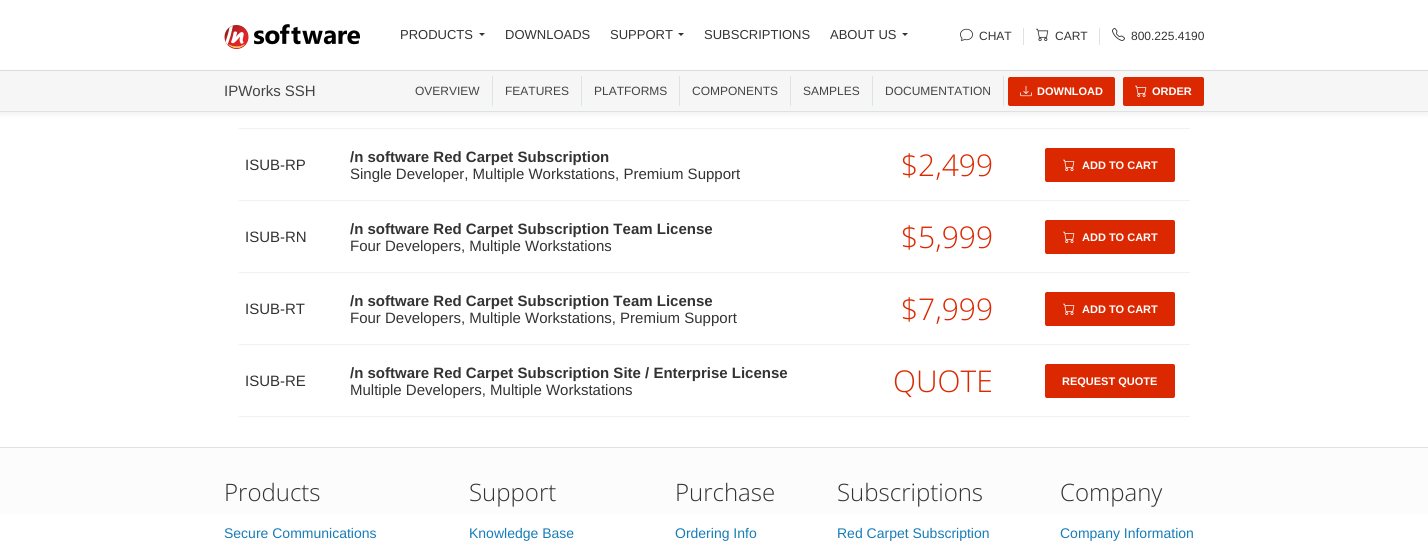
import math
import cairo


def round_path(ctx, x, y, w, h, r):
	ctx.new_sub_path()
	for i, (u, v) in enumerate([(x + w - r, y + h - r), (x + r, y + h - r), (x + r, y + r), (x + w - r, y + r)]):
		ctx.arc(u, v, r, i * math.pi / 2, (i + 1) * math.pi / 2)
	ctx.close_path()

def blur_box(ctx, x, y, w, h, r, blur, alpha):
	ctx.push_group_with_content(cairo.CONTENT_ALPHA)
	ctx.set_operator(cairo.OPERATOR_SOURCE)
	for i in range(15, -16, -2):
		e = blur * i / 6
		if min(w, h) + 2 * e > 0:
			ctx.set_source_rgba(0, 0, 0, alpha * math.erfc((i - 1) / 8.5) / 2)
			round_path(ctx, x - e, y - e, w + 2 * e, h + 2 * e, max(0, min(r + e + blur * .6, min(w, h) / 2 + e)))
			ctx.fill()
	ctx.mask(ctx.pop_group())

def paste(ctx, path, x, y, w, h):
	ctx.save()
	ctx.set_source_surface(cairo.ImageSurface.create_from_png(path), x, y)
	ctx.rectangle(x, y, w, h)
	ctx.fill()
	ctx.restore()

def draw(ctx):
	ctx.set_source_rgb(1, 1, 1)
	ctx.paint()
	ctx.set_source_rgb(0, 0, 0)
	blur_box(ctx, 0, 73, 1428, 42, 0, 2.5, 0.05)
	ctx.set_source_rgb(0.863, 0.863, 0.863)
	ctx.rectangle(0, 70, 1428, 1)
	ctx.fill()
	paste(ctx, 'media/1.png', 224, 24, 136, 25)
	ctx.select_font_face('Liberation Sans')
	ctx.set_font_size(13)
	ctx.set_source_rgb(0.2, 0.2, 0.2)
	ctx.move_to(400, 39)
	ctx.show_text('PRODUCTS')
	ctx.new_path()
	ctx.move_to(479, 33)
	ctx.line_to(485, 33)
	ctx.line_to(482, 36)
	ctx.close_path()
	ctx.fill()
	ctx.move_to(505, 39)
	ctx.show_text('DOWNLOADS')
	ctx.move_to(610, 39)
	ctx.show_text('SUPPORT')
	ctx.new_path()
	ctx.move_to(678, 33)
	ctx.line_to(684, 33)
	ctx.line_to(681, 36)
	ctx.close_path()
	ctx.fill()
	ctx.move_to(704, 39)
	ctx.show_text('SUBSCRIPTIONS')
	ctx.move_to(830, 39)
	ctx.show_text('ABOUT US')
	ctx.new_path()
	ctx.move_to(902, 33)
	ctx.line_to(908, 33)
	ctx.line_to(905, 36)
	ctx.close_path()
	ctx.fill()
	ctx.set_source_rgb(0.867, 0.89, 0.89)
	ctx.rectangle(1023, 28, 1, 17)
	ctx.fill()
	paste(ctx, 'media/2.png', 960, 28, 13, 13)
	ctx.set_font_size(12)
	ctx.set_source_rgb(0.2, 0.2, 0.2)
	ctx.move_to(979, 40)
	ctx.show_text('CHAT')
	ctx.set_source_rgb(0.867, 0.89, 0.89)
	ctx.rectangle(1099, 28, 1, 17)
	ctx.fill()
	paste(ctx, 'media/3.png', 1036, 28, 13, 13)
	ctx.set_source_rgb(0.2, 0.2, 0.2)
	ctx.move_to(1055, 40)
	ctx.show_text('CART')
	paste(ctx, 'media/4.png', 1112, 28, 13, 13)
	ctx.move_to(1131, 40)
	ctx.show_text('800.225.4190')
	ctx.set_source_rgb(0.961, 0.961, 0.961)
	ctx.rectangle(0, 71, 1428, 40)
	ctx.fill()
	ctx.set_source_rgb(0.867, 0.89, 0.89)
	ctx.rectangle(0, 111, 1428, 1)
	ctx.fill()
	ctx.set_font_size(15)
	ctx.set_source_rgb(0.267, 0.267, 0.267)
	ctx.move_to(224, 96)
	ctx.show_text('IPWorks SSH')
	ctx.set_source_rgb(0.867, 0.89, 0.89)
	ctx.rectangle(492, 76, 1, 30)
	ctx.fill()
	ctx.set_font_size(12)
	ctx.set_source_rgb(0.267, 0.267, 0.267)
	ctx.move_to(415, 95)
	ctx.show_text('OVERVIEW')
	ctx.set_source_rgb(0.867, 0.89, 0.89)
	ctx.rectangle(581, 76, 1, 30)
	ctx.fill()
	ctx.set_source_rgb(0.267, 0.267, 0.267)
	ctx.move_to(505, 95)
	ctx.show_text('FEATURES')
	ctx.set_source_rgb(0.867, 0.89, 0.89)
	ctx.rectangle(679, 76, 1, 30)
	ctx.fill()
	ctx.set_source_rgb(0.267, 0.267, 0.267)
	ctx.move_to(594, 95)
	ctx.show_text('PLATFORMS')
	ctx.set_source_rgb(0.867, 0.89, 0.89)
	ctx.rectangle(790, 76, 1, 30)
	ctx.fill()
	ctx.set_source_rgb(0.267, 0.267, 0.267)
	ctx.move_to(692, 95)
	ctx.show_text('COMPONENTS')
	ctx.set_source_rgb(0.867, 0.89, 0.89)
	ctx.rectangle(872, 76, 1, 30)
	ctx.fill()
	ctx.set_source_rgb(0.267, 0.267, 0.267)
	ctx.move_to(803, 95)
	ctx.show_text('SAMPLES')
	ctx.set_source_rgb(0.867, 0.89, 0.89)
	ctx.rectangle(1003, 76, 1, 30)
	ctx.fill()
	ctx.set_source_rgb(0.267, 0.267, 0.267)
	ctx.move_to(885, 95)
	ctx.show_text('DOCUMENTATION')
	ctx.set_source_rgb(0.859, 0.157, 0)
	round_path(ctx, 1008, 77, 107, 29, 2)
	ctx.fill()
	paste(ctx, 'media/5.png', 1020, 85, 12, 12)
	ctx.select_font_face('Liberation Sans', cairo.FONT_SLANT_NORMAL, cairo.FONT_WEIGHT_BOLD)
	ctx.set_font_size(11)
	ctx.set_source_rgb(1, 1, 1)
	ctx.move_to(1037, 95)
	ctx.show_text('DOWNLOAD')
	ctx.set_source_rgb(0.859, 0.157, 0)
	round_path(ctx, 1123, 77, 81, 29, 2)
	ctx.fill()
	paste(ctx, 'media/6.png', 1135, 85, 12, 12)
	ctx.set_source_rgb(1, 1, 1)
	ctx.move_to(1152, 95)
	ctx.show_text('ORDER')
	ctx.set_source_rgb(0.945, 0.945, 0.945)
	ctx.rectangle(239, 128, 951, 1)
	ctx.fill()
	ctx.rectangle(239, 200, 951, 1)
	ctx.fill()
	ctx.select_font_face('Liberation Sans')
	ctx.set_font_size(15)
	ctx.set_source_rgb(0.2, 0.2, 0.2)
	ctx.move_to(245, 170)
	ctx.show_text('ISUB-RP')
	ctx.select_font_face('Liberation Sans', cairo.FONT_SLANT_NORMAL, cairo.FONT_WEIGHT_BOLD)
	ctx.move_to(350, 162)
	ctx.show_text('/n software Red Carpet Subscription')
	ctx.select_font_face('Liberation Sans')
	ctx.move_to(350, 179)
	ctx.show_text('Single Developer, Multiple Workstations, Premium Support')
	ctx.select_font_face('Open Sans Light')
	ctx.set_font_size(30)
	ctx.set_source_rgb(0.859, 0.157, 0)
	ctx.move_to(901, 176)
	ctx.show_text('$2,499')
	round_path(ctx, 1045, 148, 130, 34, 2)
	ctx.fill()
	paste(ctx, 'media/6.png', 1063, 159, 12, 12)
	ctx.select_font_face('Liberation Sans', cairo.FONT_SLANT_NORMAL, cairo.FONT_WEIGHT_BOLD)
	ctx.set_font_size(11)
	ctx.set_source_rgb(1, 1, 1)
	ctx.move_to(1082, 169)
	ctx.show_text('ADD TO CART')
	ctx.set_source_rgb(0.945, 0.945, 0.945)
	ctx.rectangle(239, 272, 951, 1)
	ctx.fill()
	ctx.select_font_face('Liberation Sans')
	ctx.set_font_size(15)
	ctx.set_source_rgb(0.2, 0.2, 0.2)
	ctx.move_to(245, 242)
	ctx.show_text('ISUB-RN')
	ctx.select_font_face('Liberation Sans', cairo.FONT_SLANT_NORMAL, cairo.FONT_WEIGHT_BOLD)
	ctx.move_to(350, 234)
	ctx.show_text('/n software Red Carpet Subscription Team License')
	ctx.select_font_face('Liberation Sans')
	ctx.move_to(350, 251)
	ctx.show_text('Four Developers, Multiple Workstations')
	ctx.select_font_face('Open Sans Light')
	ctx.set_font_size(30)
	ctx.set_source_rgb(0.859, 0.157, 0)
	ctx.move_to(901, 248)
	ctx.show_text('$5,999')
	round_path(ctx, 1045, 220, 130, 34, 2)
	ctx.fill()
	paste(ctx, 'media/6.png', 1063, 231, 12, 12)
	ctx.select_font_face('Liberation Sans', cairo.FONT_SLANT_NORMAL, cairo.FONT_WEIGHT_BOLD)
	ctx.set_font_size(11)
	ctx.set_source_rgb(1, 1, 1)
	ctx.move_to(1082, 241)
	ctx.show_text('ADD TO CART')
	ctx.set_source_rgb(0.945, 0.945, 0.945)
	ctx.rectangle(239, 344, 951, 1)
	ctx.fill()
	ctx.select_font_face('Liberation Sans')
	ctx.set_font_size(15)
	ctx.set_source_rgb(0.2, 0.2, 0.2)
	ctx.move_to(245, 314)
	ctx.show_text('ISUB-RT')
	ctx.select_font_face('Liberation Sans', cairo.FONT_SLANT_NORMAL, cairo.FONT_WEIGHT_BOLD)
	ctx.move_to(350, 306)
	ctx.show_text('/n software Red Carpet Subscription Team License')
	ctx.select_font_face('Liberation Sans')
	ctx.move_to(350, 323)
	ctx.show_text('Four Developers, Multiple Workstations, Premium Support')
	ctx.select_font_face('Open Sans Light')
	ctx.set_font_size(30)
	ctx.set_source_rgb(0.859, 0.157, 0)
	ctx.move_to(901, 320)
	ctx.show_text('$7,999')
	round_path(ctx, 1045, 292, 130, 34, 2)
	ctx.fill()
	paste(ctx, 'media/6.png', 1063, 303, 12, 12)
	ctx.select_font_face('Liberation Sans', cairo.FONT_SLANT_NORMAL, cairo.FONT_WEIGHT_BOLD)
	ctx.set_font_size(11)
	ctx.set_source_rgb(1, 1, 1)
	ctx.move_to(1082, 313)
	ctx.show_text('ADD TO CART')
	ctx.set_source_rgb(0.945, 0.945, 0.945)
	ctx.rectangle(239, 416, 951, 1)
	ctx.fill()
	ctx.select_font_face('Liberation Sans')
	ctx.set_font_size(15)
	ctx.set_source_rgb(0.2, 0.2, 0.2)
	ctx.move_to(245, 386)
	ctx.show_text('ISUB-RE')
	ctx.select_font_face('Liberation Sans', cairo.FONT_SLANT_NORMAL, cairo.FONT_WEIGHT_BOLD)
	ctx.move_to(350, 378)
	ctx.show_text('/n software Red Carpet Subscription Site / Enterprise License')
	ctx.select_font_face('Liberation Sans')
	ctx.move_to(350, 395)
	ctx.show_text('Multiple Developers, Multiple Workstations')
	ctx.select_font_face('Open Sans Light')
	ctx.set_font_size(30)
	ctx.set_source_rgb(0.859, 0.157, 0)
	ctx.move_to(893, 392)
	ctx.show_text('QUOTE')
	round_path(ctx, 1045, 364, 130, 34, 2)
	ctx.fill()
	ctx.select_font_face('Liberation Sans', cairo.FONT_SLANT_NORMAL, cairo.FONT_WEIGHT_BOLD)
	ctx.set_font_size(11)
	ctx.set_source_rgb(1, 1, 1)
	ctx.move_to(1062, 385)
	ctx.show_text('REQUEST QUOTE')
	gradient = cairo.LinearGradient(714, 448, 714, 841)
	gradient.add_color_stop_rgba(0, 0.988, 0.988, 0.988, 1)
	gradient.add_color_stop_rgba(1, 1, 1, 1, 1)
	ctx.set_source(gradient)
	ctx.rectangle(0, 448, 1428, 66)
	ctx.fill()
	ctx.set_source_rgb(0.867, 0.89, 0.89)
	ctx.rectangle(0, 447, 1428, 1)
	ctx.fill()
	ctx.select_font_face('Open Sans Light')
	ctx.set_font_size(24)
	ctx.set_source_rgb(0.2, 0.2, 0.2)
	ctx.move_to(224, 501)
	ctx.show_text('Products')
	ctx.select_font_face('Liberation Sans')
	ctx.set_font_size(14)
	ctx.set_source_rgb(0.09, 0.486, 0.722)
	ctx.move_to(224, 538)
	ctx.show_text('Secure Communications')
	ctx.select_font_face('Open Sans Light')
	ctx.set_font_size(24)
	ctx.set_source_rgb(0.2, 0.2, 0.2)
	ctx.move_to(469, 501)
	ctx.show_text('Support')
	ctx.select_font_face('Liberation Sans')
	ctx.set_font_size(14)
	ctx.set_source_rgb(0.09, 0.486, 0.722)
	ctx.move_to(469, 538)
	ctx.show_text('Knowledge Base')
	ctx.select_font_face('Open Sans Light')
	ctx.set_font_size(24)
	ctx.set_source_rgb(0.2, 0.2, 0.2)
	ctx.move_to(675, 501)
	ctx.show_text('Purchase')
	ctx.select_font_face('Liberation Sans')
	ctx.set_font_size(14)
	ctx.set_source_rgb(0.09, 0.486, 0.722)
	ctx.move_to(675, 538)
	ctx.show_text('Ordering Info')
	ctx.select_font_face('Open Sans Light')
	ctx.set_font_size(24)
	ctx.set_source_rgb(0.2, 0.2, 0.2)
	ctx.move_to(837, 501)
	ctx.show_text('Subscriptions')
	ctx.select_font_face('Liberation Sans')
	ctx.set_font_size(14)
	ctx.set_source_rgb(0.09, 0.486, 0.722)
	ctx.move_to(837, 538)
	ctx.show_text('Red Carpet Subscription')
	ctx.select_font_face('Open Sans Light')
	ctx.set_font_size(24)
	ctx.set_source_rgb(0.2, 0.2, 0.2)
	ctx.move_to(1060, 501)
	ctx.show_text('Company')
	ctx.select_font_face('Liberation Sans')
	ctx.set_font_size(14)
	ctx.set_source_rgb(0.09, 0.486, 0.722)
	ctx.move_to(1060, 538)
	ctx.show_text('Company Information')


surface = cairo.ImageSurface(cairo.FORMAT_RGB24, 1428, 554)
ctx = cairo.Context(surface)
options = cairo.FontOptions()
options.set_hint_metrics(cairo.HINT_METRICS_OFF)
options.set_hint_style(cairo.HINT_STYLE_NONE)
ctx.set_font_options(options)
ctx.set_miter_limit(4)
draw(ctx)
surface.write_to_png('image.png')
